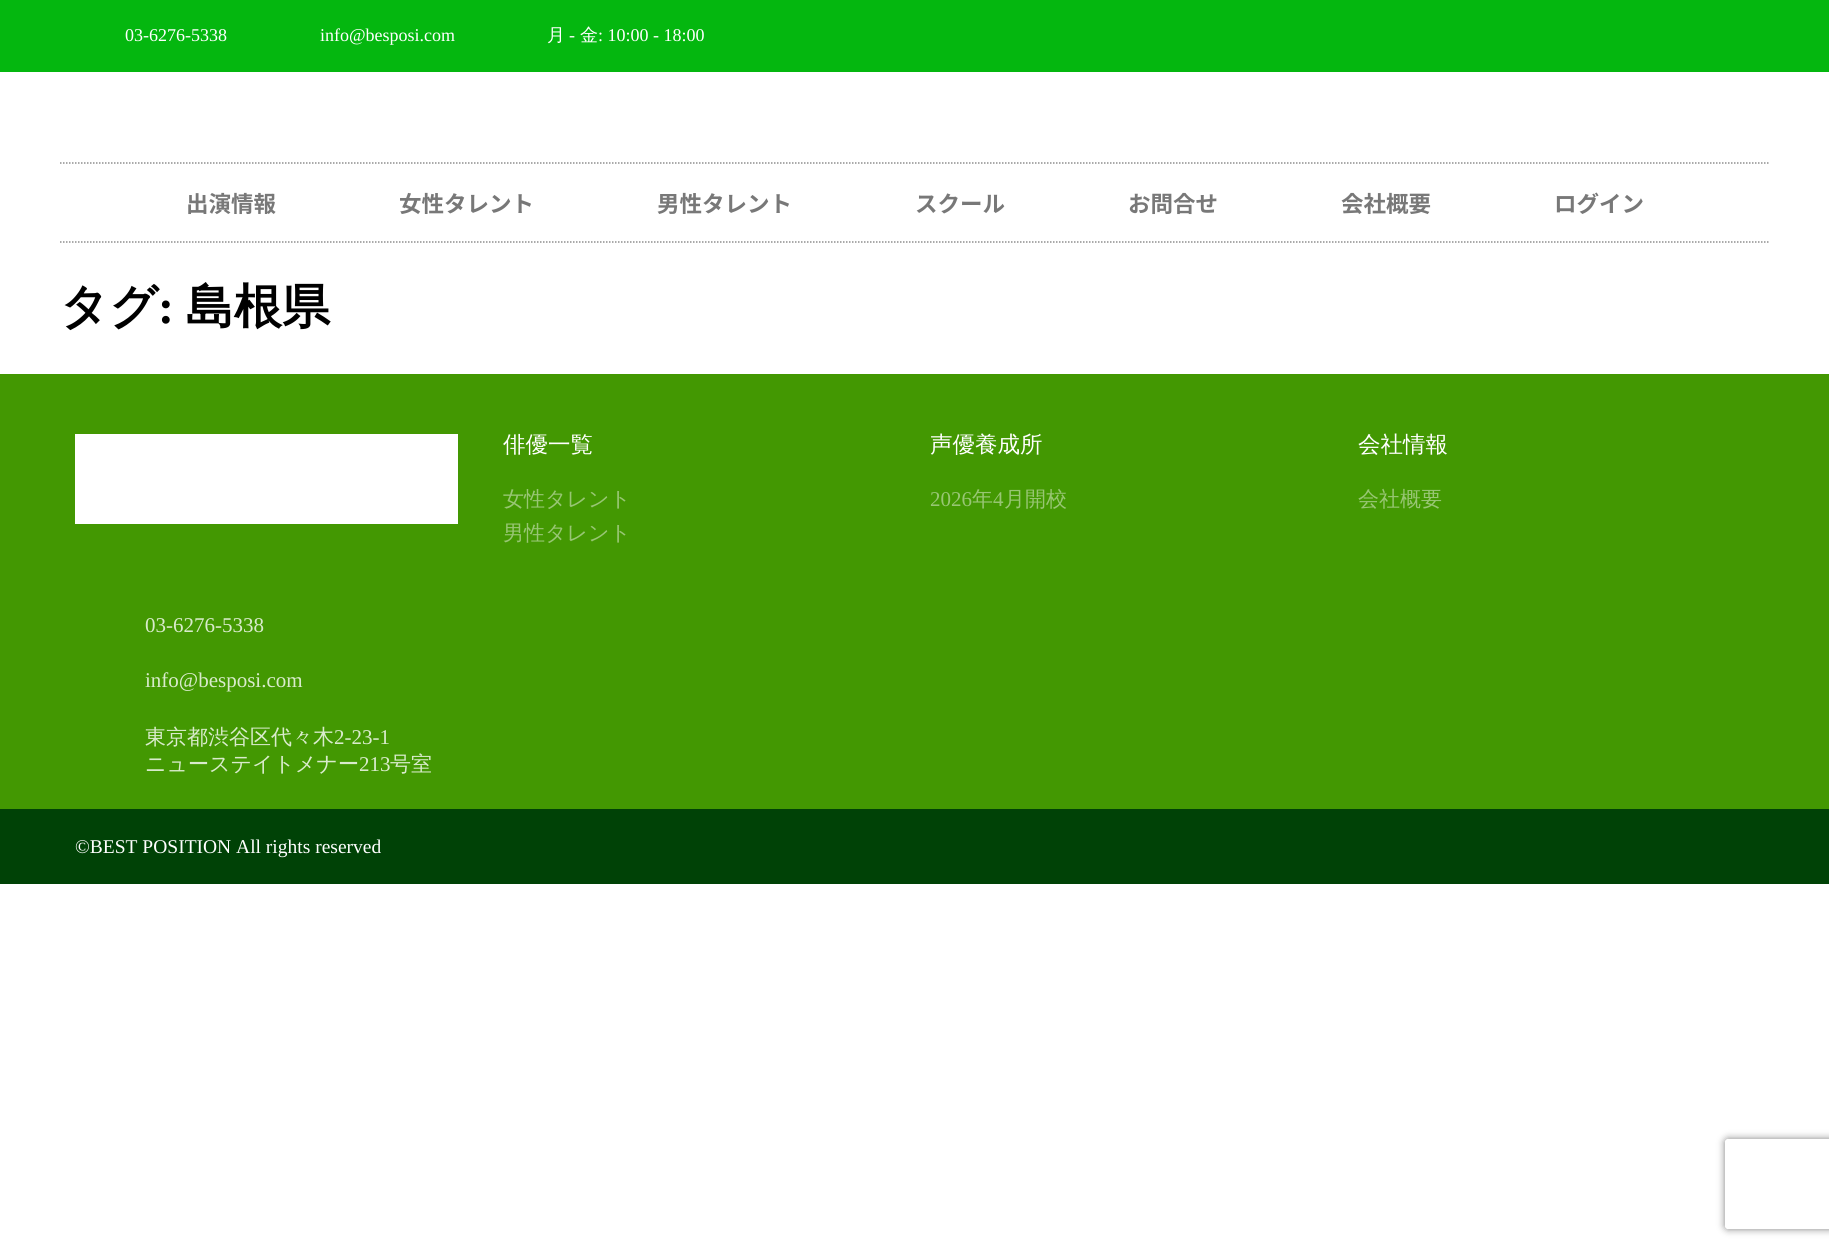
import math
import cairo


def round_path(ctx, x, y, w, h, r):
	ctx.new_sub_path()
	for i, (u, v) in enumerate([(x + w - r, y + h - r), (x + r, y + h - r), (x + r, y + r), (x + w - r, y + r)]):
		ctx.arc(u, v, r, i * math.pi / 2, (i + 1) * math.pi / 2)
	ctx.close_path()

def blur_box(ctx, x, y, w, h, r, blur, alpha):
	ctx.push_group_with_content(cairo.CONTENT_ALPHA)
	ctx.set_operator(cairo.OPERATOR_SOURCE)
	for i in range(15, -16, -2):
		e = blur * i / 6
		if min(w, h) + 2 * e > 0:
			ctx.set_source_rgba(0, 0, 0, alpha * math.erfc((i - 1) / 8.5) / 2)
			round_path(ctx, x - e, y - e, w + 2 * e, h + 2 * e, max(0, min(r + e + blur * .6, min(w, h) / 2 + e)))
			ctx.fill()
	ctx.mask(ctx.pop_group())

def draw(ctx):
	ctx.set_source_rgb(1, 1, 1)
	ctx.paint()
	ctx.set_source_rgb(0.016, 0.718, 0.059)
	ctx.rectangle(0, 0, 1829, 72)
	ctx.fill()
	ctx.select_font_face('Liberation Serif')
	ctx.set_font_size(18)
	ctx.set_source_rgb(1, 1, 1)
	ctx.move_to(125, 41)
	ctx.show_text('03-6276-5338')
	ctx.move_to(320, 41)
	ctx.show_text('info@besposi.com')
	ctx.select_font_face('WenQuanYi Zen Hei Medium')
	ctx.move_to(547, 41)
	ctx.show_text('月')
	ctx.select_font_face('Liberation Serif')
	ctx.move_to(569, 41)
	ctx.show_text('-')
	ctx.select_font_face('WenQuanYi Zen Hei Medium')
	ctx.move_to(580, 41)
	ctx.show_text('金')
	ctx.select_font_face('Liberation Serif')
	ctx.move_to(598, 41)
	ctx.show_text(': 10:00 - 18:00')
	ctx.new_path()
	ctx.move_to(60, 163)
	ctx.line_to(1770, 163)
	ctx.set_source_rgb(0.557, 0.557, 0.557)
	ctx.set_line_width(1.5)
	ctx.set_dash([1.5, 1.5])
	ctx.stroke()
	ctx.new_path()
	ctx.move_to(60, 242)
	ctx.line_to(1770, 242)
	ctx.stroke()
	ctx.select_font_face('Noto Sans JP', cairo.FONT_SLANT_NORMAL, cairo.FONT_WEIGHT_BOLD)
	ctx.set_font_size(22.5)
	ctx.set_source_rgb(0.471, 0.471, 0.471)
	for x, y, s in [
		(186, 212, '出演情報'),
		(399, 212, '女性タレント'),
		(657, 212, '男性タレント'),
		(915, 212, 'スクール'),
		(1128, 212, 'お問合せ'),
		(1341, 212, '会社概要'),
		(1554, 212, 'ログイン'),
	]:
		ctx.move_to(x, y)
		ctx.show_text(s)
	ctx.select_font_face('WenQuanYi Zen Hei', cairo.FONT_SLANT_NORMAL, cairo.FONT_WEIGHT_BOLD)
	ctx.set_font_size(48)
	ctx.set_source_rgb(0, 0, 0)
	ctx.move_to(60, 323)
	ctx.show_text('タグ')
	ctx.select_font_face('Liberation Serif', cairo.FONT_SLANT_NORMAL, cairo.FONT_WEIGHT_BOLD)
	ctx.move_to(158, 323)
	ctx.show_text(':')
	ctx.select_font_face('WenQuanYi Zen Hei', cairo.FONT_SLANT_NORMAL, cairo.FONT_WEIGHT_BOLD)
	ctx.move_to(186, 323)
	ctx.show_text('島根県')
	ctx.set_source_rgb(0.263, 0.596, 0.008)
	ctx.rectangle(0, 374, 1829, 435)
	ctx.fill()
	ctx.select_font_face('WenQuanYi Zen Hei Medium')
	ctx.set_font_size(22.5)
	ctx.set_source_rgb(1, 1, 1)
	ctx.move_to(503, 452)
	ctx.show_text('俳優一覧')
	ctx.set_font_size(21)
	ctx.set_source_rgb(0.596, 0.776, 0.455)
	ctx.move_to(503, 506)
	ctx.show_text('女性タレント')
	ctx.move_to(503, 540)
	ctx.show_text('男性タレント')
	ctx.set_font_size(22.5)
	ctx.set_source_rgb(1, 1, 1)
	ctx.move_to(930, 452)
	ctx.show_text('声優養成所')
	ctx.select_font_face('Liberation Serif')
	ctx.set_font_size(21)
	ctx.set_source_rgb(0.596, 0.776, 0.455)
	ctx.move_to(930, 506)
	ctx.show_text('2026')
	ctx.select_font_face('WenQuanYi Zen Hei Medium')
	ctx.move_to(972, 506)
	ctx.show_text('年')
	ctx.select_font_face('Liberation Serif')
	ctx.move_to(993, 506)
	ctx.show_text('4')
	ctx.select_font_face('WenQuanYi Zen Hei Medium')
	ctx.move_to(1004, 506)
	ctx.show_text('月開校')
	ctx.set_font_size(22.5)
	ctx.set_source_rgb(1, 1, 1)
	ctx.move_to(1358, 452)
	ctx.show_text('会社情報')
	ctx.set_font_size(21)
	ctx.set_source_rgb(0.596, 0.776, 0.455)
	ctx.move_to(1358, 506)
	ctx.show_text('会社概要')
	ctx.set_source_rgb(1, 1, 1)
	ctx.rectangle(75, 434, 383, 90)
	ctx.fill()
	ctx.select_font_face('Liberation Serif')
	ctx.set_source_rgb(0.851, 0.918, 0.8)
	ctx.move_to(145, 632)
	ctx.show_text('03-6276-5338')
	ctx.move_to(145, 687)
	ctx.show_text('info@besposi.com')
	ctx.select_font_face('WenQuanYi Zen Hei Medium')
	ctx.move_to(145, 744)
	ctx.show_text('東京都渋谷区代々木')
	ctx.select_font_face('Liberation Serif')
	ctx.move_to(334, 744)
	ctx.show_text('2-23-1')
	ctx.select_font_face('WenQuanYi Zen Hei Medium')
	ctx.move_to(145, 771)
	ctx.show_text('ニューステイトメナー')
	ctx.select_font_face('Liberation Serif')
	ctx.move_to(359, 771)
	ctx.show_text('213')
	ctx.select_font_face('WenQuanYi Zen Hei Medium')
	ctx.move_to(390, 771)
	ctx.show_text('号室')
	ctx.set_source_rgb(0, 0.259, 0.024)
	ctx.rectangle(0, 809, 1829, 75)
	ctx.fill()
	ctx.select_font_face('Liberation Serif')
	ctx.set_font_size(19.5)
	ctx.set_source_rgb(1, 1, 1)
	ctx.move_to(75, 853)
	ctx.show_text('©BEST POSITION All rights reserved')
	ctx.save()
	ctx.set_fill_rule(cairo.FILL_RULE_EVEN_ODD)
	ctx.new_path()
	ctx.move_to(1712, 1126)
	ctx.line_to(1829, 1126)
	ctx.line_to(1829, 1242)
	ctx.line_to(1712, 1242)
	ctx.close_path()
	ctx.move_to(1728, 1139)
	ctx.line_to(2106, 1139)
	ctx.curve_to(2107.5, 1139, 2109, 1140.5, 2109, 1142)
	ctx.line_to(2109, 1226)
	ctx.curve_to(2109, 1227.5, 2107.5, 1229, 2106, 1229)
	ctx.line_to(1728, 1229)
	ctx.curve_to(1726.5, 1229, 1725, 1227.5, 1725, 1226)
	ctx.line_to(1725, 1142)
	ctx.curve_to(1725, 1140.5, 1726.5, 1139, 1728, 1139)
	ctx.close_path()
	ctx.clip()
	ctx.set_source_rgb(0.502, 0.502, 0.502)
	blur_box(ctx, 1725, 1139, 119, 90, 3, 4, 1)
	ctx.restore()


surface = cairo.ImageSurface(cairo.FORMAT_RGB24, 1829, 1249)
ctx = cairo.Context(surface)
options = cairo.FontOptions()
options.set_hint_metrics(cairo.HINT_METRICS_OFF)
options.set_hint_style(cairo.HINT_STYLE_NONE)
ctx.set_font_options(options)
ctx.set_miter_limit(4)
draw(ctx)
surface.write_to_png('image.png')
